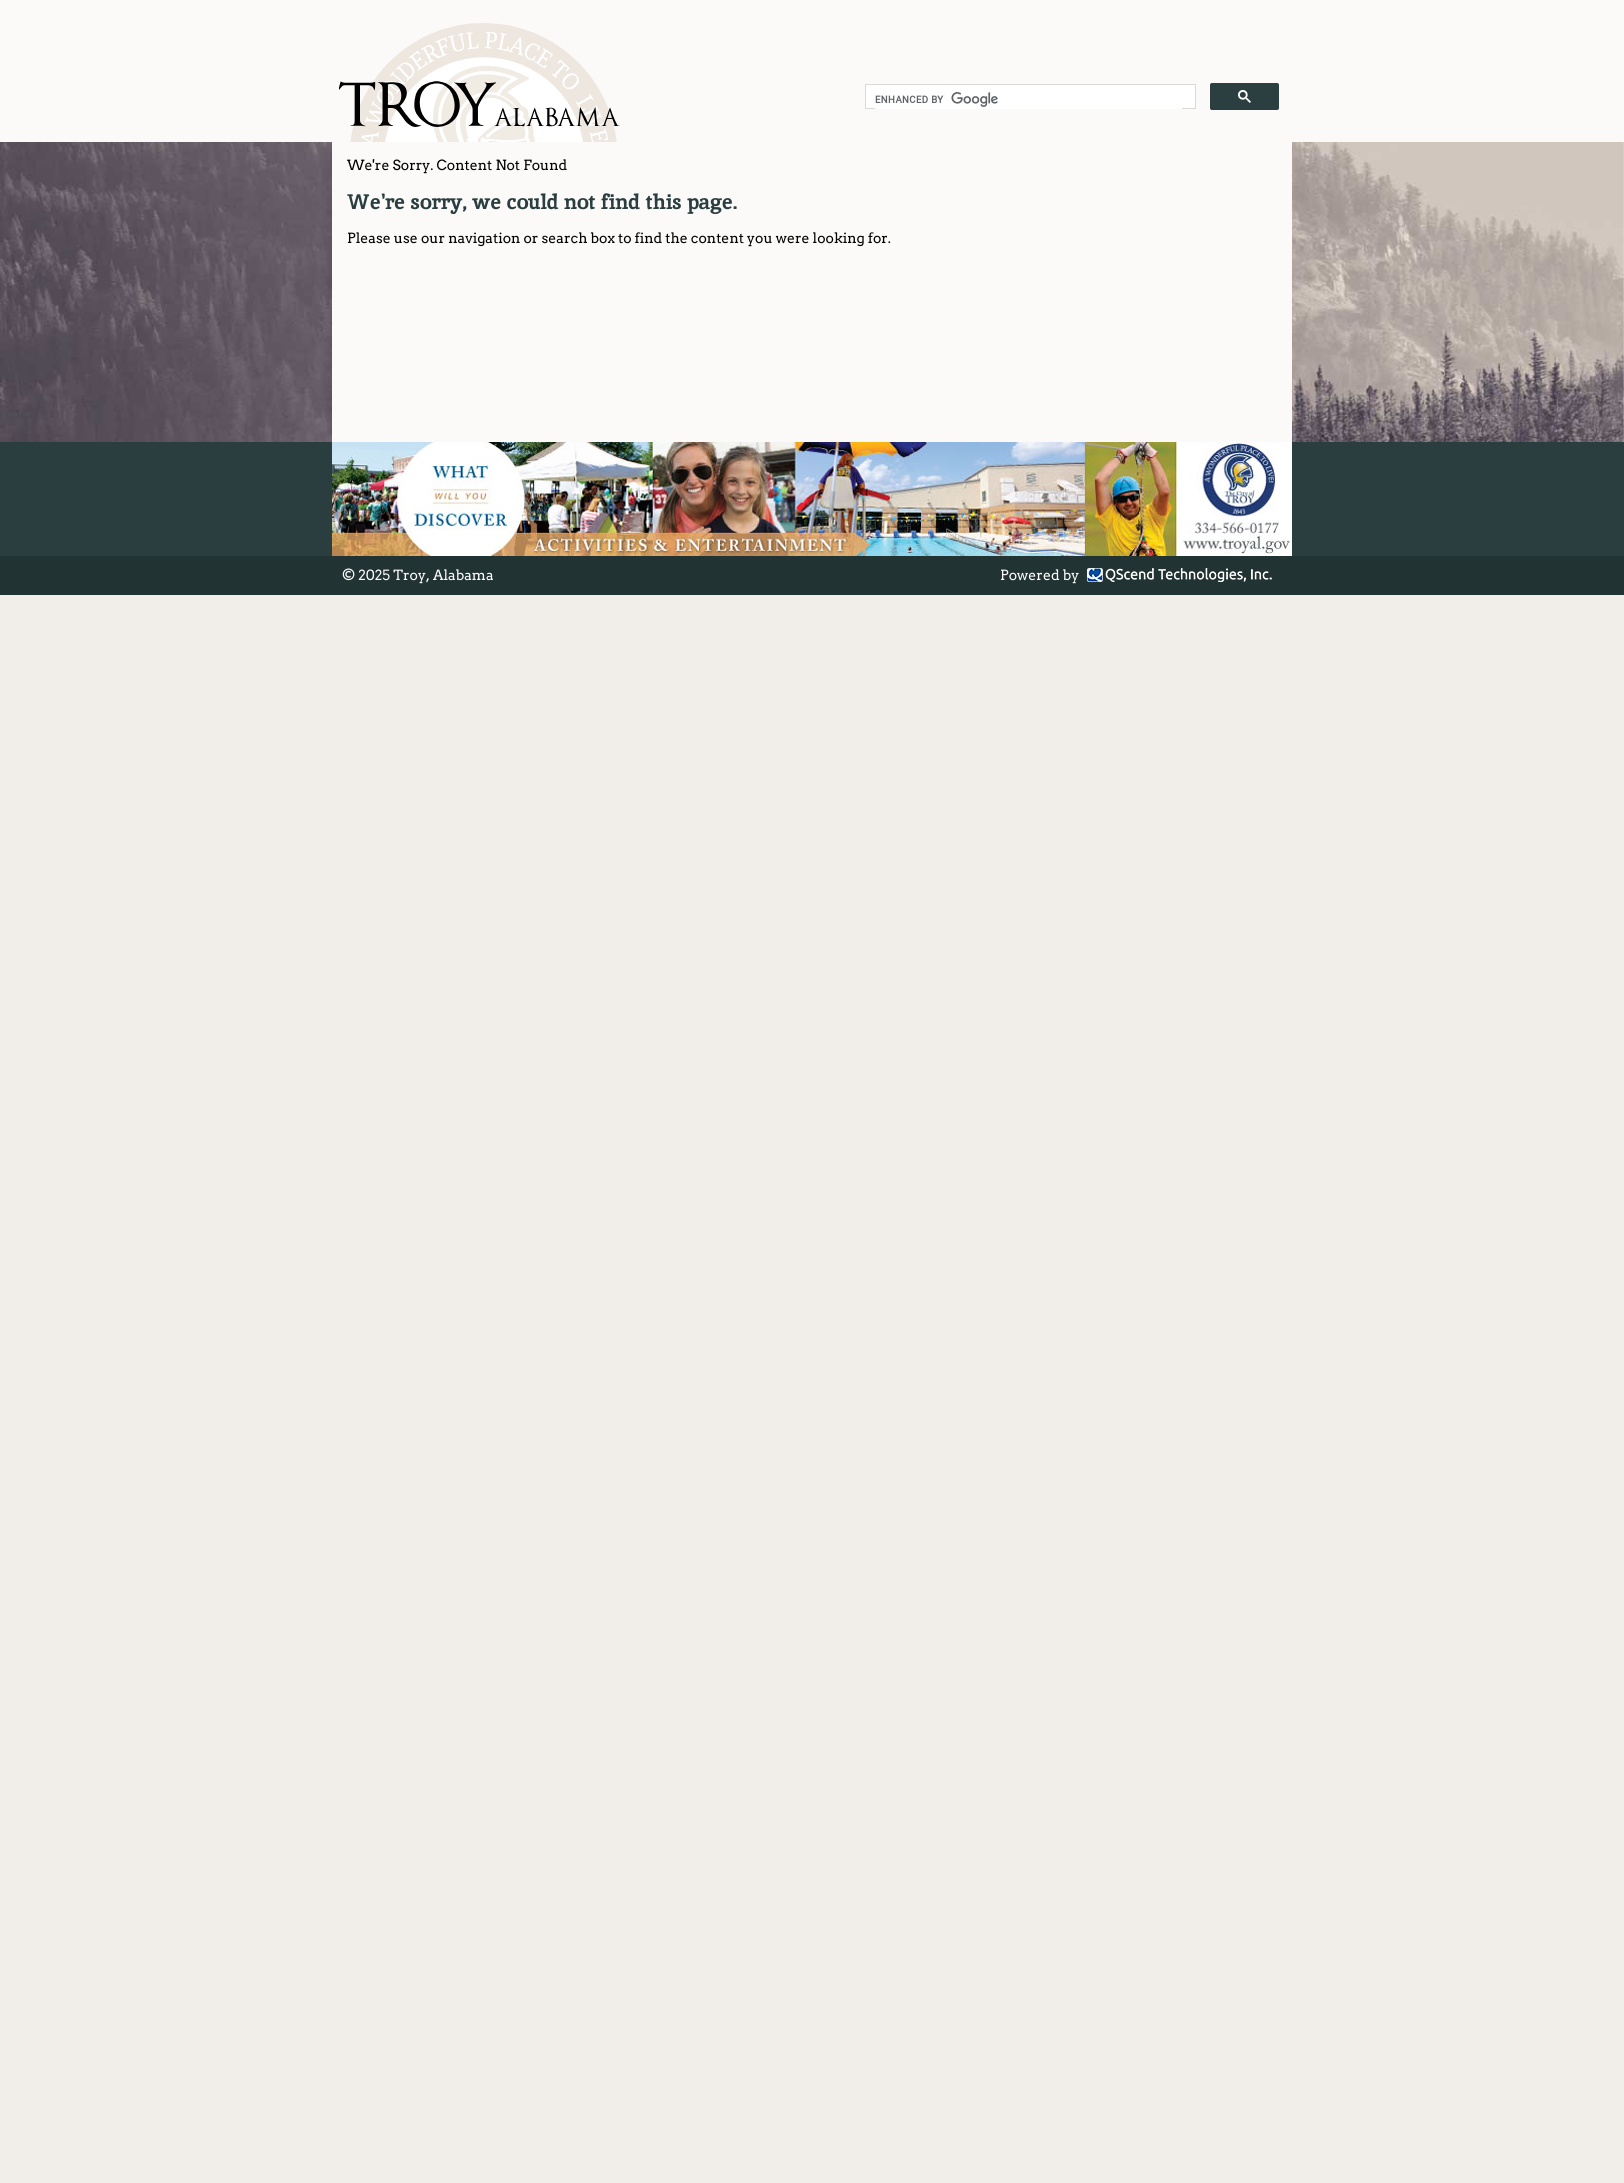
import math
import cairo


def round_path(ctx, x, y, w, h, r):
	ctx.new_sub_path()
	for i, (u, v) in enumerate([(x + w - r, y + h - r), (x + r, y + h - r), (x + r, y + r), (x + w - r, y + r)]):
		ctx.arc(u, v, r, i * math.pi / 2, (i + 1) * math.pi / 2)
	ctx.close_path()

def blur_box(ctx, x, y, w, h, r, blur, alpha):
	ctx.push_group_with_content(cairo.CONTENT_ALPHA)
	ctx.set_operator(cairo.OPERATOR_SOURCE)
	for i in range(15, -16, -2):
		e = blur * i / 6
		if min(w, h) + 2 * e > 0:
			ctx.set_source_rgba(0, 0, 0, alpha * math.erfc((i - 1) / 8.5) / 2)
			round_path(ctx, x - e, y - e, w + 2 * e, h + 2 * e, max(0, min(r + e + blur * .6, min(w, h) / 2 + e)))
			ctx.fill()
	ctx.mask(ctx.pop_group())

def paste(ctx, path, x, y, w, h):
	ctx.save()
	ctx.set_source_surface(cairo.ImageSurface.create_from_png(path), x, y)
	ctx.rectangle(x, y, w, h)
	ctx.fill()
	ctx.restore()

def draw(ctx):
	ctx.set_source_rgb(0.945, 0.929, 0.91)
	ctx.paint()
	paste(ctx, 'media/4.png', 0, 142, 1624, 300)
	ctx.set_source_rgb(0, 0, 0)
	blur_box(ctx, 329, 150, 944, 284, 0, 5, 0.13)
	ctx.set_source_rgb(0.988, 0.98, 0.976)
	ctx.rectangle(0, 0, 1624, 142)
	ctx.fill()
	paste(ctx, 'media/1.png', 339, 23, 281, 119)
	ctx.set_source_rgb(1, 1, 1)
	ctx.rectangle(865.5, 84.5, 330, 24)
	ctx.fill_preserve()
	ctx.set_source_rgb(0.851, 0.851, 0.851)
	ctx.set_line_width(1)
	ctx.stroke()
	ctx.set_source_rgb(1, 1, 1)
	ctx.rectangle(875, 108, 307, 1)
	ctx.fill()
	paste(ctx, 'media/2.png', 875, 92, 123, 15)
	ctx.set_source_rgb(0.169, 0.243, 0.251)
	round_path(ctx, 1210.5, 83.5, 68, 26, 1.5)
	ctx.fill_preserve()
	ctx.stroke()
	paste(ctx, 'media/3.png', 1238, 90, 13, 13)
	ctx.set_source_rgb(0.988, 0.98, 0.976)
	ctx.rectangle(332, 142, 960, 300)
	ctx.fill()
	ctx.select_font_face('Arvo')
	ctx.set_font_size(14)
	ctx.set_source_rgb(0, 0, 0)
	ctx.move_to(347, 170)
	ctx.show_text('We\'re Sorry. Content Not Found')
	ctx.select_font_face('Inika', cairo.FONT_SLANT_NORMAL, cairo.FONT_WEIGHT_BOLD)
	ctx.set_font_size(21)
	ctx.set_source_rgb(0.165, 0.243, 0.251)
	ctx.move_to(347, 209)
	ctx.show_text('We\'re sorry, we could not find this page.')
	ctx.select_font_face('Arvo')
	ctx.set_font_size(14)
	ctx.set_source_rgb(0, 0, 0)
	ctx.move_to(347, 243)
	ctx.show_text('Please use our navigation or search box to find the content you were looking for.')
	ctx.set_source_rgb(0.165, 0.243, 0.251)
	ctx.rectangle(0, 442, 1624, 114)
	ctx.fill()
	paste(ctx, 'media/5.png', 332, 442, 960, 114)
	ctx.set_source_rgb(0.133, 0.2, 0.2)
	ctx.rectangle(0, 556, 1624, 39)
	ctx.fill()
	ctx.set_source_rgb(1, 1, 1)
	ctx.move_to(342, 580)
	ctx.show_text('© 2025 Troy, Alabama')
	ctx.move_to(1000, 580)
	ctx.show_text('Powered by')
	paste(ctx, 'media/6.png', 1087, 568, 185, 14)


surface = cairo.ImageSurface(cairo.FORMAT_RGB24, 1624, 2183)
ctx = cairo.Context(surface)
options = cairo.FontOptions()
options.set_hint_metrics(cairo.HINT_METRICS_OFF)
options.set_hint_style(cairo.HINT_STYLE_NONE)
ctx.set_font_options(options)
ctx.set_miter_limit(4)
draw(ctx)
surface.write_to_png('image.png')
